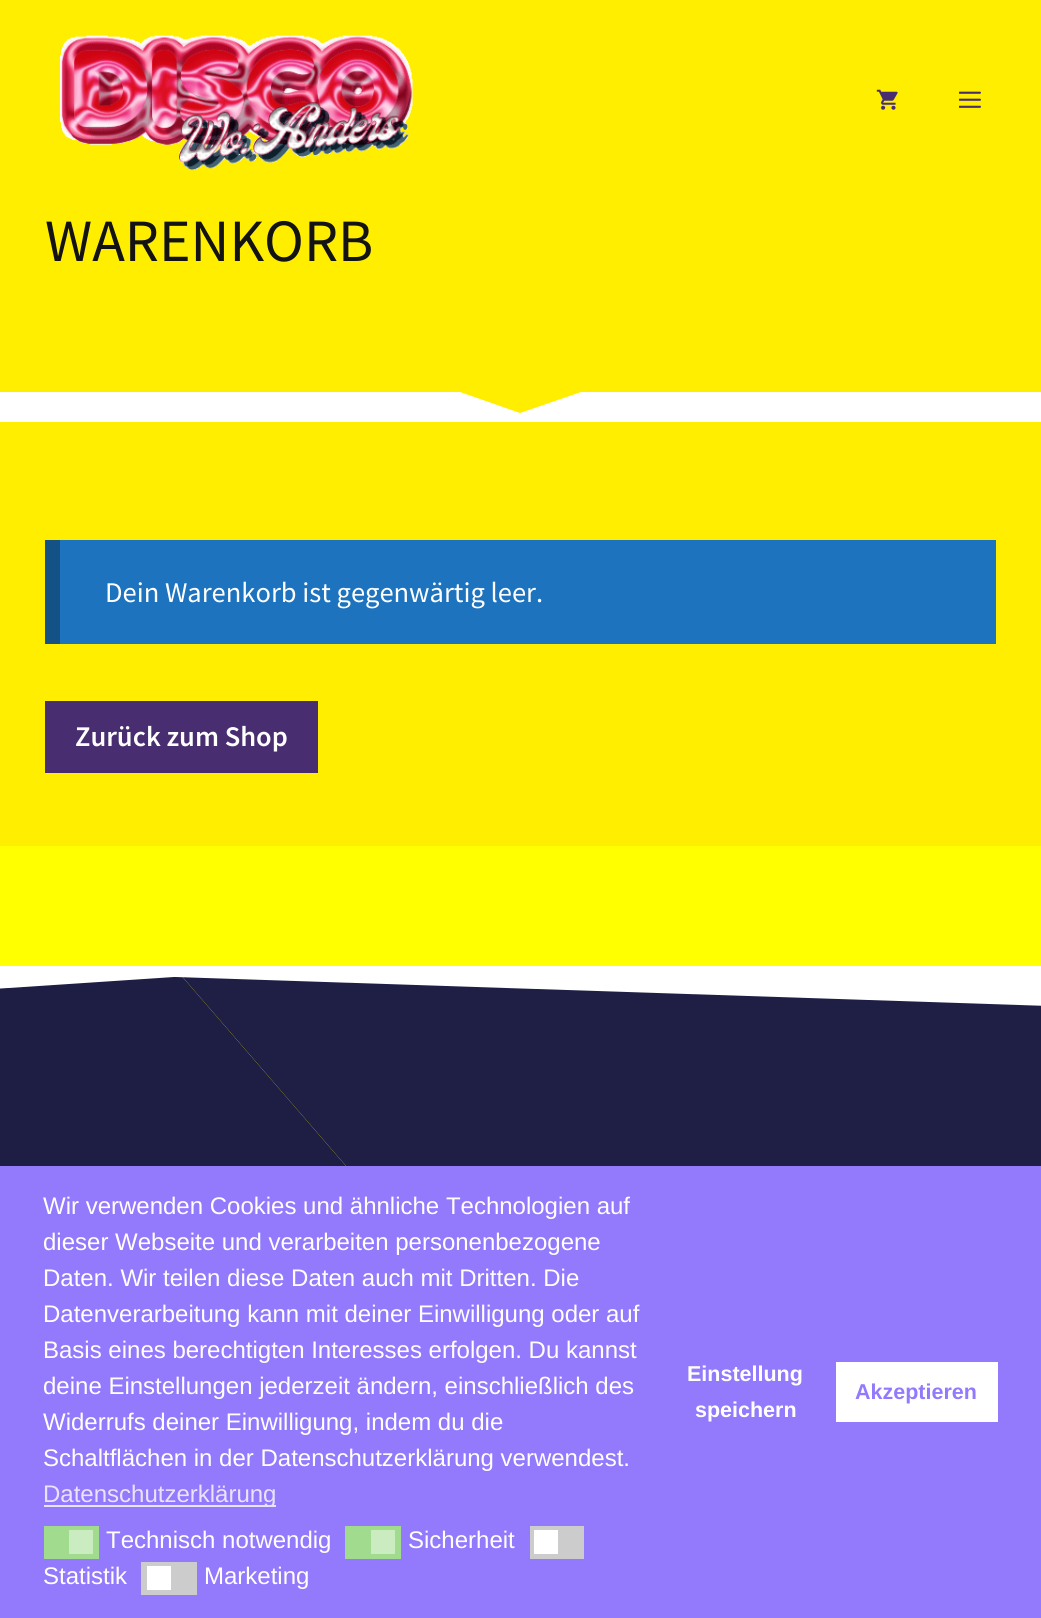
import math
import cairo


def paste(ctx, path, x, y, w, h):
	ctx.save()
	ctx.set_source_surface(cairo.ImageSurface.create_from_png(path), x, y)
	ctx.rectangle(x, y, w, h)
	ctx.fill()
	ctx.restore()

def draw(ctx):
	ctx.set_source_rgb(1, 1, 0)
	ctx.paint()
	ctx.set_source_rgb(1, 0.933, 0)
	ctx.rectangle(0, 0, 1041, 413)
	ctx.fill()
	paste(ctx, 'media/1.png', 60, 35, 353, 136)
	paste(ctx, 'media/2.png', 876, 89, 22, 21)
	paste(ctx, 'media/3.png', 959, 91, 22, 17)
	ctx.select_font_face('Source Sans Pro')
	ctx.set_font_size(60)
	ctx.set_source_rgb(0.078, 0.078, 0.078)
	ctx.move_to(45, 261)
	ctx.show_text('WARENKORB')
	ctx.set_source_rgb(1, 1, 1)
	ctx.new_path()
	ctx.move_to(-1, 392)
	ctx.line_to(-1, 422)
	ctx.line_to(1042, 422)
	ctx.line_to(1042, 392)
	ctx.line_to(581, 392)
	ctx.line_to(520, 413)
	ctx.line_to(460, 392)
	ctx.close_path()
	ctx.fill()
	ctx.set_source_rgb(1, 0.933, 0)
	ctx.rectangle(0, 422, 1041, 424)
	ctx.fill()
	ctx.set_source_rgb(0.118, 0.451, 0.745)
	ctx.rectangle(60, 540, 936, 104)
	ctx.fill()
	ctx.set_source_rgb(0.082, 0.318, 0.522)
	ctx.rectangle(45, 540, 15, 104)
	ctx.fill()
	ctx.set_font_size(28.5)
	ctx.set_source_rgb(1, 1, 1)
	ctx.move_to(105, 602)
	ctx.show_text('Dein Warenkorb ist gegenwärtig leer.')
	ctx.set_source_rgb(0.282, 0.176, 0.439)
	ctx.rectangle(45, 701, 273, 72)
	ctx.fill()
	ctx.select_font_face('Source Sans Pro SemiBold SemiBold')
	ctx.set_source_rgb(1, 1, 1)
	ctx.move_to(75, 746)
	ctx.show_text('Zurück zum Shop')
	ctx.set_source_rgb(0.118, 0.118, 0.267)
	ctx.new_path()
	ctx.move_to(-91, 966)
	ctx.line_to(-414, 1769)
	ctx.line_to(133, 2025)
	ctx.curve_to(189, 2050, 254, 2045, 304, 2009)
	ctx.line_to(782, 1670)
	ctx.line_to(173, 966)
	ctx.close_path()
	ctx.fill()
	ctx.set_source_rgb(0.122, 0.122, 0.275)
	ctx.new_path()
	ctx.move_to(173, 966)
	ctx.line_to(782, 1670)
	ctx.line_to(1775, 966)
	ctx.close_path()
	ctx.fill()
	ctx.save()
	ctx.rectangle(0, 966, 1041, 59)
	ctx.clip()
	ctx.set_source_rgb(1, 1, 1)
	ctx.new_path()
	ctx.move_to(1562, 963)
	ctx.line_to(-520, 963)
	ctx.line_to(-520, 1023)
	ctx.line_to(174, 977)
	ctx.line_to(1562, 1023)
	ctx.close_path()
	ctx.fill()
	ctx.restore()
	ctx.set_source_rgb(0.576, 0.478, 0.988)
	ctx.rectangle(0, 1166, 1041, 452)
	ctx.fill()
	ctx.select_font_face('Liberation Sans')
	ctx.set_font_size(24)
	ctx.set_source_rgb(1, 1, 1)
	for x, y, s in [
		(43, 1214, 'Wir verwenden Cookies und ähnliche Technologien auf'),
		(43, 1250, 'dieser Webseite und verarbeiten personenbezogene'),
		(43, 1286, 'Daten. Wir teilen diese Daten auch mit Dritten. Die'),
		(43, 1322, 'Datenverarbeitung kann mit deiner Einwilligung oder auf'),
		(43, 1358, 'Basis eines berechtigten Interesses erfolgen. Du kannst'),
		(43, 1394, 'deine Einstellungen jederzeit ändern, einschließlich des'),
		(43, 1430, 'Widerrufs deiner Einwilligung, indem du die'),
		(43, 1466, 'Schaltflächen in der Datenschutzerklärung verwendest.'),
	]:
		ctx.move_to(x, y)
		ctx.show_text(s)
	ctx.set_source_rgb(0.914, 0.894, 0.996)
	ctx.rectangle(44, 1505, 232, 2)
	ctx.fill()
	ctx.move_to(43, 1502)
	ctx.show_text('Datenschutzerklärung')
	ctx.set_source_rgb(0.627, 0.859, 0.557)
	ctx.rectangle(44, 1526, 55, 33)
	ctx.fill()
	ctx.set_source_rgb(0.796, 0.922, 0.757)
	ctx.rectangle(69, 1530, 24, 24)
	ctx.fill()
	ctx.set_source_rgb(1, 1, 1)
	ctx.move_to(106, 1548)
	ctx.show_text('Technisch notwendig')
	ctx.set_source_rgb(0.627, 0.859, 0.557)
	ctx.rectangle(345, 1526, 56, 33)
	ctx.fill()
	ctx.set_source_rgb(0.796, 0.922, 0.757)
	ctx.rectangle(371, 1530, 24, 24)
	ctx.fill()
	ctx.set_source_rgb(1, 1, 1)
	ctx.move_to(408, 1548)
	ctx.show_text('Sicherheit')
	ctx.set_source_rgb(0.8, 0.8, 0.8)
	ctx.rectangle(530, 1526, 54, 33)
	ctx.fill()
	ctx.set_source_rgb(1, 1, 1)
	ctx.rectangle(534, 1530, 24, 24)
	ctx.fill()
	ctx.move_to(43, 1584)
	ctx.show_text('Statistik')
	ctx.set_source_rgb(0.8, 0.8, 0.8)
	ctx.rectangle(141, 1562, 56, 33)
	ctx.fill()
	ctx.set_source_rgb(1, 1, 1)
	ctx.rectangle(147, 1566, 24, 24)
	ctx.fill()
	ctx.move_to(204, 1584)
	ctx.show_text('Marketing')
	ctx.select_font_face('Liberation Sans', cairo.FONT_SLANT_NORMAL, cairo.FONT_WEIGHT_BOLD)
	ctx.set_font_size(21.5)
	ctx.move_to(687, 1381)
	ctx.show_text('Einstellung')
	ctx.move_to(695, 1417)
	ctx.show_text('speichern')
	ctx.rectangle(836, 1362, 162, 60)
	ctx.fill()
	ctx.set_source_rgb(0.576, 0.478, 0.988)
	ctx.move_to(855, 1399)
	ctx.show_text('Akzeptieren')


surface = cairo.ImageSurface(cairo.FORMAT_RGB24, 1041, 1618)
ctx = cairo.Context(surface)
options = cairo.FontOptions()
options.set_hint_metrics(cairo.HINT_METRICS_OFF)
options.set_hint_style(cairo.HINT_STYLE_NONE)
ctx.set_font_options(options)
ctx.set_miter_limit(4)
draw(ctx)
surface.write_to_png('image.png')
